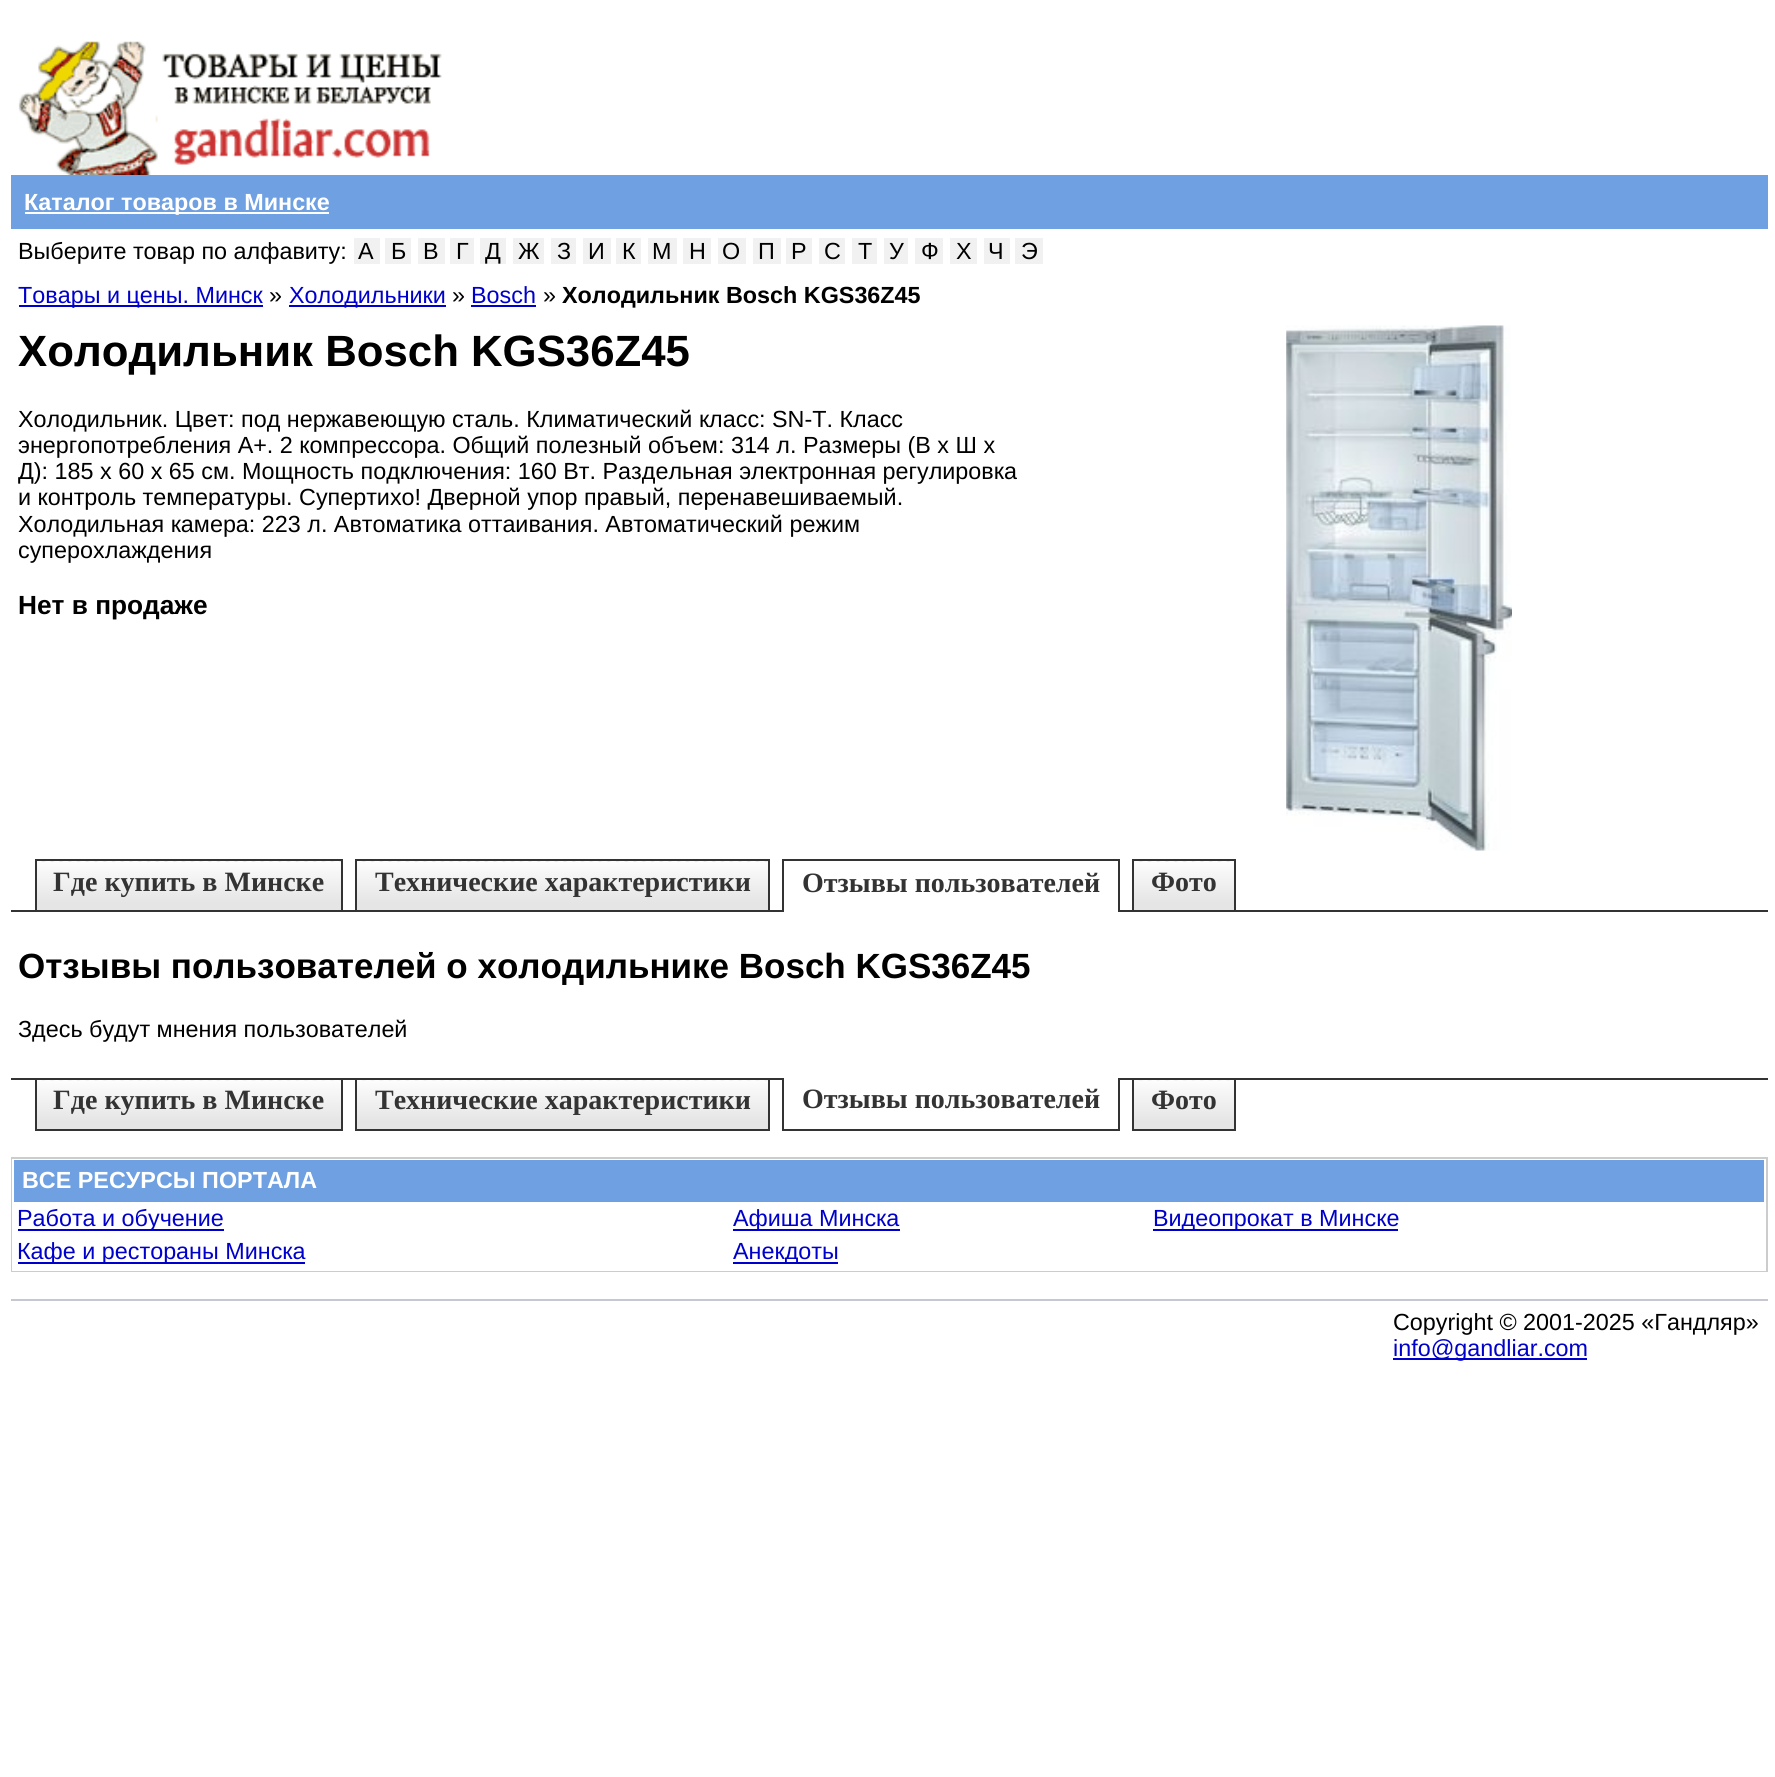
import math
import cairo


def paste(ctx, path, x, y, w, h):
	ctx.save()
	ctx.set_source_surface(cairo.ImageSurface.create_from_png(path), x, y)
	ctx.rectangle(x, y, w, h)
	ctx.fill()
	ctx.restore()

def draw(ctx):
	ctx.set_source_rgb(1, 1, 1)
	ctx.paint()
	paste(ctx, 'media/1.png', 18, 41, 424, 134)
	ctx.set_source_rgb(0.435, 0.627, 0.882)
	ctx.rectangle(11, 175, 1757, 54)
	ctx.fill()
	ctx.set_source_rgb(1, 1, 1)
	ctx.rectangle(25, 212, 304, 2)
	ctx.fill()
	ctx.select_font_face('Liberation Sans', cairo.FONT_SLANT_NORMAL, cairo.FONT_WEIGHT_BOLD)
	ctx.set_font_size(23.35)
	ctx.move_to(24, 210)
	ctx.show_text('Каталог товаров в Минске')
	ctx.select_font_face('Liberation Sans')
	ctx.set_source_rgb(0, 0, 0)
	ctx.move_to(18, 259)
	ctx.show_text('Выберите товар по алфавиту:')
	ctx.set_source_rgb(0.945, 0.945, 0.945)
	ctx.rectangle(354, 238, 26, 26)
	ctx.fill()
	ctx.set_source_rgb(0, 0, 0)
	ctx.move_to(358, 259)
	ctx.show_text('А')
	ctx.set_source_rgb(0.945, 0.945, 0.945)
	ctx.rectangle(385, 238, 26, 26)
	ctx.fill()
	ctx.set_source_rgb(0, 0, 0)
	ctx.move_to(391, 259)
	ctx.show_text('Б')
	ctx.set_source_rgb(0.945, 0.945, 0.945)
	ctx.rectangle(418, 238, 27, 26)
	ctx.fill()
	ctx.set_source_rgb(0, 0, 0)
	ctx.move_to(423, 259)
	ctx.show_text('В')
	ctx.set_source_rgb(0.945, 0.945, 0.945)
	ctx.rectangle(450, 238, 24, 26)
	ctx.fill()
	ctx.set_source_rgb(0, 0, 0)
	ctx.move_to(456, 259)
	ctx.show_text('Г')
	ctx.set_source_rgb(0.945, 0.945, 0.945)
	ctx.rectangle(480, 238, 26, 26)
	ctx.fill()
	ctx.set_source_rgb(0, 0, 0)
	ctx.move_to(485, 259)
	ctx.show_text('Д')
	ctx.set_source_rgb(0.945, 0.945, 0.945)
	ctx.rectangle(513, 238, 31, 26)
	ctx.fill()
	ctx.set_source_rgb(0, 0, 0)
	ctx.move_to(518, 259)
	ctx.show_text('Ж')
	ctx.set_source_rgb(0.945, 0.945, 0.945)
	ctx.rectangle(551, 238, 25, 26)
	ctx.fill()
	ctx.set_source_rgb(0, 0, 0)
	ctx.move_to(557, 259)
	ctx.show_text('З')
	ctx.set_source_rgb(0.945, 0.945, 0.945)
	ctx.rectangle(583, 238, 28, 26)
	ctx.fill()
	ctx.set_source_rgb(0, 0, 0)
	ctx.move_to(588, 259)
	ctx.show_text('И')
	ctx.set_source_rgb(0.945, 0.945, 0.945)
	ctx.rectangle(616, 238, 25, 26)
	ctx.fill()
	ctx.set_source_rgb(0, 0, 0)
	ctx.move_to(622, 259)
	ctx.show_text('К')
	ctx.set_source_rgb(0.945, 0.945, 0.945)
	ctx.rectangle(648, 238, 29, 26)
	ctx.fill()
	ctx.set_source_rgb(0, 0, 0)
	ctx.move_to(652, 259)
	ctx.show_text('М')
	ctx.set_source_rgb(0.945, 0.945, 0.945)
	ctx.rectangle(683, 238, 28, 26)
	ctx.fill()
	ctx.set_source_rgb(0, 0, 0)
	ctx.move_to(689, 259)
	ctx.show_text('Н')
	ctx.set_source_rgb(0.945, 0.945, 0.945)
	ctx.rectangle(718, 238, 28, 26)
	ctx.fill()
	ctx.set_source_rgb(0, 0, 0)
	ctx.move_to(722, 259)
	ctx.show_text('О')
	ctx.set_source_rgb(0.945, 0.945, 0.945)
	ctx.rectangle(753, 238, 28, 26)
	ctx.fill()
	ctx.set_source_rgb(0, 0, 0)
	ctx.move_to(758, 259)
	ctx.show_text('П')
	ctx.set_source_rgb(0.945, 0.945, 0.945)
	ctx.rectangle(786, 238, 26, 26)
	ctx.fill()
	ctx.set_source_rgb(0, 0, 0)
	ctx.move_to(791, 259)
	ctx.show_text('Р')
	ctx.set_source_rgb(0.945, 0.945, 0.945)
	ctx.rectangle(819, 238, 26, 26)
	ctx.fill()
	ctx.set_source_rgb(0, 0, 0)
	ctx.move_to(824, 259)
	ctx.show_text('С')
	ctx.set_source_rgb(0.945, 0.945, 0.945)
	ctx.rectangle(852, 238, 25, 26)
	ctx.fill()
	ctx.set_source_rgb(0, 0, 0)
	ctx.move_to(858, 259)
	ctx.show_text('Т')
	ctx.set_source_rgb(0.945, 0.945, 0.945)
	ctx.rectangle(884, 238, 24, 26)
	ctx.fill()
	ctx.set_source_rgb(0, 0, 0)
	ctx.move_to(889, 259)
	ctx.show_text('У')
	ctx.set_source_rgb(0.945, 0.945, 0.945)
	ctx.rectangle(915, 238, 28, 26)
	ctx.fill()
	ctx.set_source_rgb(0, 0, 0)
	ctx.move_to(921, 259)
	ctx.show_text('Ф')
	ctx.set_source_rgb(0.945, 0.945, 0.945)
	ctx.rectangle(950, 238, 27, 26)
	ctx.fill()
	ctx.set_source_rgb(0, 0, 0)
	ctx.move_to(956, 259)
	ctx.show_text('Х')
	ctx.set_source_rgb(0.945, 0.945, 0.945)
	ctx.rectangle(984, 238, 26, 26)
	ctx.fill()
	ctx.set_source_rgb(0, 0, 0)
	ctx.move_to(988, 259)
	ctx.show_text('Ч')
	ctx.set_source_rgb(0.945, 0.945, 0.945)
	ctx.rectangle(1015, 238, 28, 26)
	ctx.fill()
	ctx.set_source_rgb(0, 0, 0)
	ctx.move_to(1021, 259)
	ctx.show_text('Э')
	ctx.set_source_rgb(0, 0, 0.8)
	ctx.rectangle(19, 305, 244, 2)
	ctx.fill()
	ctx.move_to(18, 303)
	ctx.show_text('Товары и цены. Минск')
	ctx.set_source_rgb(0, 0, 0)
	ctx.move_to(269, 303)
	ctx.show_text('»')
	ctx.set_source_rgb(0, 0, 0.8)
	ctx.rectangle(289, 305, 157, 2)
	ctx.fill()
	ctx.move_to(289, 303)
	ctx.show_text('Холодильники')
	ctx.set_source_rgb(0, 0, 0)
	ctx.move_to(452, 303)
	ctx.show_text('»')
	ctx.set_source_rgb(0, 0, 0.8)
	ctx.move_to(471, 303)
	ctx.show_text('Bosch')
	ctx.rectangle(471, 305, 65, 2)
	ctx.fill()
	ctx.set_source_rgb(0, 0, 0)
	ctx.move_to(543, 303)
	ctx.show_text('»')
	ctx.select_font_face('Liberation Sans', cairo.FONT_SLANT_NORMAL, cairo.FONT_WEIGHT_BOLD)
	ctx.move_to(562, 303)
	ctx.show_text('Холодильник Bosch KGS36Z45')
	ctx.set_font_size(43.75)
	ctx.move_to(18, 366)
	ctx.show_text('Холодильник Bosch KGS36Z45')
	ctx.select_font_face('Liberation Sans')
	ctx.set_font_size(23.35)
	for x, y, s in [
		(18, 427, 'Холодильник. Цвет: под нержавеющую сталь. Климатический класс: SN-T. Класс'),
		(18, 453, 'энергопотребления A+. 2 компрессора. Общий полезный объем: 314 л. Размеры (В х Ш х'),
		(18, 479, 'Д): 185 х 60 х 65 см. Мощность подключения: 160 Вт. Раздельная электронная регулировка'),
		(18, 505, 'и контроль температуры. Супертихо! Дверной упор правый, перенавешиваемый.'),
		(18, 532, 'Холодильная камера: 223 л. Автоматика оттаивания. Автоматический режим'),
		(18, 558, 'суперохлаждения'),
	]:
		ctx.move_to(x, y)
		ctx.show_text(s)
	ctx.select_font_face('Liberation Sans', cairo.FONT_SLANT_NORMAL, cairo.FONT_WEIGHT_BOLD)
	ctx.set_font_size(26.25)
	ctx.move_to(18, 614)
	ctx.show_text('Нет в продаже')
	paste(ctx, 'media/2.png', 1286, 325, 226, 526)
	paste(ctx, 'media/3.png', 37, 861, 304, 49)
	ctx.rectangle(36, 860, 306, 51)
	ctx.set_source_rgb(0.2, 0.2, 0.2)
	ctx.stroke()
	ctx.select_font_face('Liberation Serif', cairo.FONT_SLANT_NORMAL, cairo.FONT_WEIGHT_BOLD)
	ctx.set_font_size(28)
	ctx.move_to(53, 891)
	ctx.show_text('Где купить в Минске')
	paste(ctx, 'media/4.png', 357, 861, 411, 49)
	ctx.rectangle(356, 860, 413, 51)
	ctx.stroke()
	ctx.move_to(375, 891)
	ctx.show_text('Технические характеристики')
	ctx.rectangle(782, 859, 338, 2)
	ctx.rectangle(1118, 859, 2, 53)
	ctx.rectangle(782, 859, 2, 53)
	ctx.fill()
	ctx.move_to(802, 892)
	ctx.show_text('Отзывы пользователей')
	paste(ctx, 'media/5.png', 1134, 861, 100, 49)
	ctx.rectangle(1133, 860, 102, 51)
	ctx.stroke()
	ctx.move_to(1151, 891)
	ctx.show_text('Фото')
	ctx.rectangle(11, 910, 24, 2)
	ctx.rectangle(343, 910, 12, 2)
	ctx.rectangle(770, 910, 12, 2)
	ctx.rectangle(1120, 910, 12, 2)
	ctx.rectangle(1236, 910, 532, 2)
	ctx.fill()
	ctx.select_font_face('Liberation Sans', cairo.FONT_SLANT_NORMAL, cairo.FONT_WEIGHT_BOLD)
	ctx.set_font_size(35)
	ctx.set_source_rgb(0, 0, 0)
	ctx.move_to(18, 978)
	ctx.show_text('Отзывы пользователей о холодильнике Bosch KGS36Z45')
	ctx.select_font_face('Liberation Sans')
	ctx.set_font_size(23.35)
	ctx.move_to(18, 1037)
	ctx.show_text('Здесь будут мнения пользователей')
	ctx.set_source_rgb(0.2, 0.2, 0.2)
	ctx.rectangle(11, 1078, 24, 2)
	ctx.rectangle(343, 1078, 12, 2)
	ctx.rectangle(770, 1078, 12, 2)
	ctx.rectangle(1120, 1078, 12, 2)
	ctx.rectangle(1236, 1078, 532, 2)
	ctx.fill()
	paste(ctx, 'media/6.png', 37, 1080, 304, 49)
	ctx.rectangle(36, 1079, 306, 51)
	ctx.stroke()
	ctx.select_font_face('Liberation Serif', cairo.FONT_SLANT_NORMAL, cairo.FONT_WEIGHT_BOLD)
	ctx.set_font_size(28)
	ctx.move_to(53, 1109)
	ctx.show_text('Где купить в Минске')
	paste(ctx, 'media/7.png', 357, 1080, 411, 49)
	ctx.rectangle(356, 1079, 413, 51)
	ctx.stroke()
	ctx.move_to(375, 1109)
	ctx.show_text('Технические характеристики')
	ctx.rectangle(1118, 1078, 2, 53)
	ctx.rectangle(782, 1129, 338, 2)
	ctx.rectangle(782, 1078, 2, 53)
	ctx.fill()
	ctx.move_to(802, 1108)
	ctx.show_text('Отзывы пользователей')
	paste(ctx, 'media/8.png', 1134, 1080, 100, 49)
	ctx.rectangle(1133, 1079, 102, 51)
	ctx.stroke()
	ctx.move_to(1151, 1109)
	ctx.show_text('Фото')
	ctx.set_source_rgb(0.8, 0.8, 0.8)
	ctx.rectangle(11, 1157, 1757, 115)
	ctx.fill()
	ctx.set_source_rgb(1, 1, 1)
	ctx.rectangle(12, 1159, 1754, 112)
	ctx.fill()
	ctx.set_source_rgb(0.435, 0.627, 0.882)
	ctx.rectangle(14, 1160, 1750, 42)
	ctx.fill()
	ctx.select_font_face('Liberation Sans', cairo.FONT_SLANT_NORMAL, cairo.FONT_WEIGHT_BOLD)
	ctx.set_font_size(23.35)
	ctx.set_source_rgb(1, 1, 1)
	ctx.move_to(22, 1188)
	ctx.show_text('ВСЕ РЕСУРСЫ ПОРТАЛА')
	ctx.set_source_rgb(0, 0, 0.8)
	ctx.rectangle(18, 1229, 206, 2)
	ctx.fill()
	ctx.select_font_face('Liberation Sans')
	ctx.move_to(17, 1226)
	ctx.show_text('Работа и обучение')
	ctx.rectangle(733, 1229, 167, 2)
	ctx.fill()
	ctx.move_to(733, 1226)
	ctx.show_text('Афиша Минска')
	ctx.rectangle(1153, 1229, 245, 2)
	ctx.fill()
	ctx.move_to(1153, 1226)
	ctx.show_text('Видеопрокат в Минске')
	ctx.rectangle(18, 1262, 287, 2)
	ctx.fill()
	ctx.move_to(17, 1259)
	ctx.show_text('Кафе и рестораны Минска')
	ctx.rectangle(733, 1262, 105, 2)
	ctx.fill()
	ctx.move_to(733, 1259)
	ctx.show_text('Анекдоты')
	ctx.set_source_rgb(0.773, 0.784, 0.816)
	ctx.rectangle(11, 1299, 1757, 2)
	ctx.fill()
	ctx.set_source_rgb(0, 0, 0)
	ctx.move_to(1393, 1330)
	ctx.show_text('Copyright © 2001-2025 «Гандляр»')
	ctx.set_source_rgb(0, 0, 0.8)
	ctx.rectangle(1393, 1358, 194, 2)
	ctx.fill()
	ctx.move_to(1393, 1356)
	ctx.show_text('info@gandliar.com')


surface = cairo.ImageSurface(cairo.FORMAT_RGB24, 1775, 1777)
ctx = cairo.Context(surface)
options = cairo.FontOptions()
options.set_hint_metrics(cairo.HINT_METRICS_OFF)
options.set_hint_style(cairo.HINT_STYLE_NONE)
ctx.set_font_options(options)
ctx.set_miter_limit(4)
draw(ctx)
surface.write_to_png('image.png')
